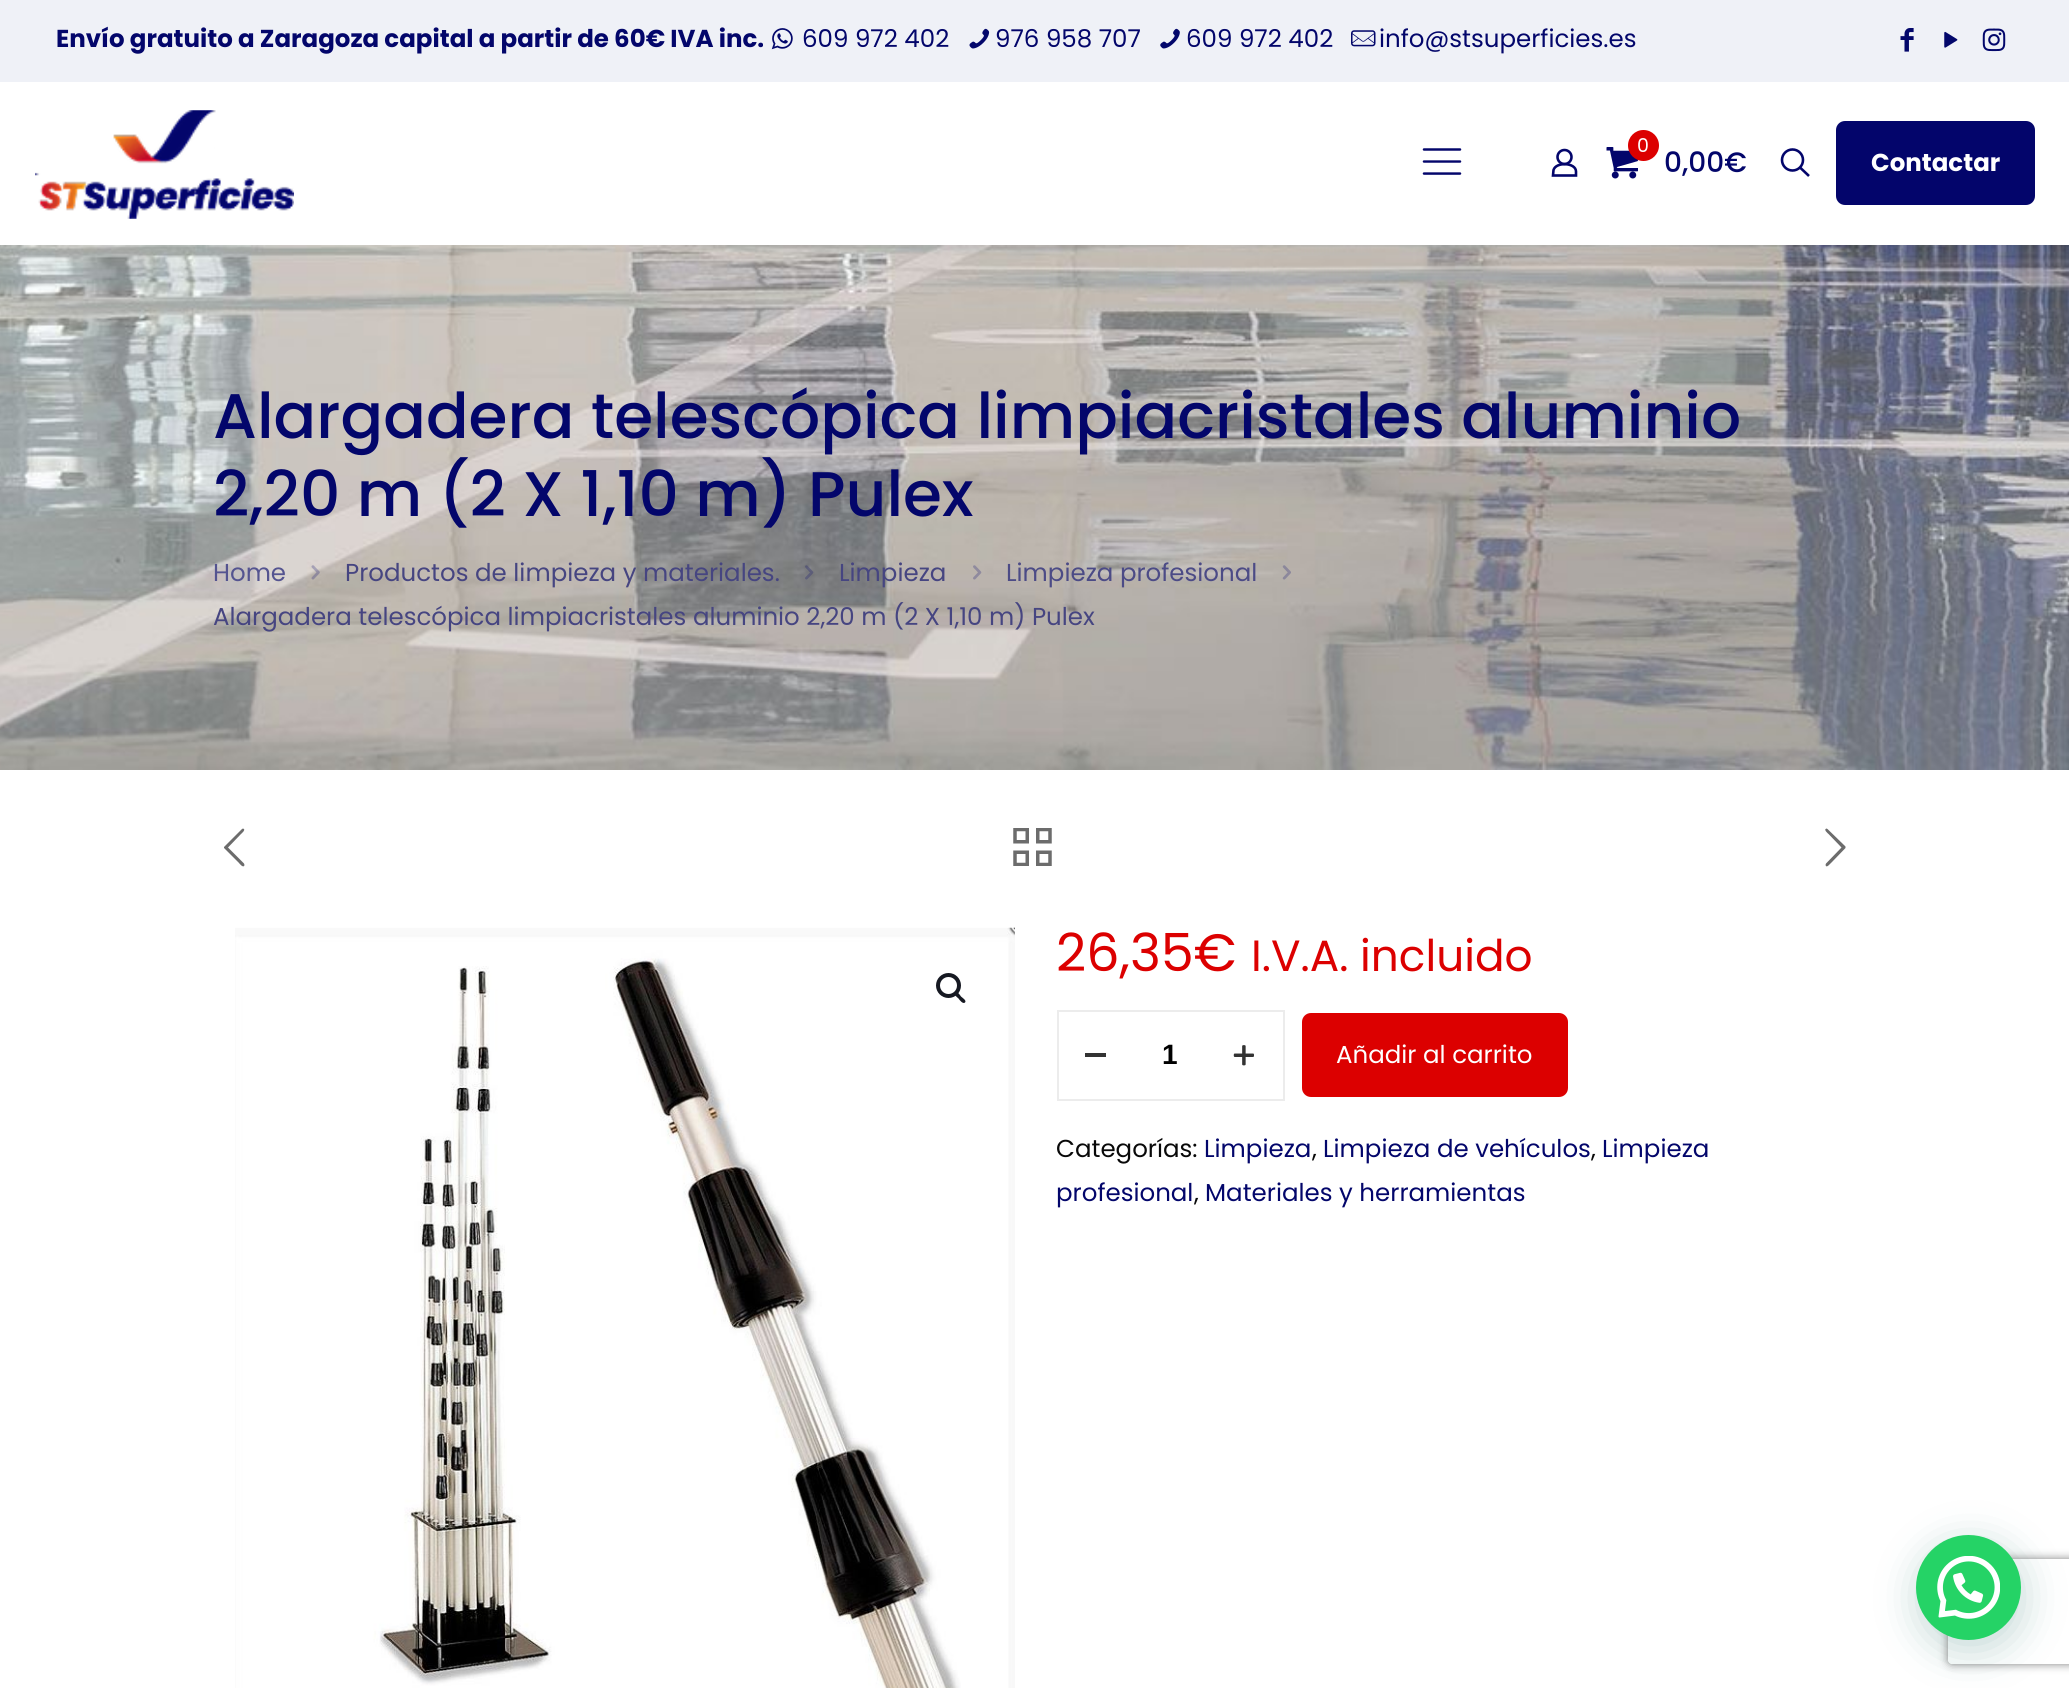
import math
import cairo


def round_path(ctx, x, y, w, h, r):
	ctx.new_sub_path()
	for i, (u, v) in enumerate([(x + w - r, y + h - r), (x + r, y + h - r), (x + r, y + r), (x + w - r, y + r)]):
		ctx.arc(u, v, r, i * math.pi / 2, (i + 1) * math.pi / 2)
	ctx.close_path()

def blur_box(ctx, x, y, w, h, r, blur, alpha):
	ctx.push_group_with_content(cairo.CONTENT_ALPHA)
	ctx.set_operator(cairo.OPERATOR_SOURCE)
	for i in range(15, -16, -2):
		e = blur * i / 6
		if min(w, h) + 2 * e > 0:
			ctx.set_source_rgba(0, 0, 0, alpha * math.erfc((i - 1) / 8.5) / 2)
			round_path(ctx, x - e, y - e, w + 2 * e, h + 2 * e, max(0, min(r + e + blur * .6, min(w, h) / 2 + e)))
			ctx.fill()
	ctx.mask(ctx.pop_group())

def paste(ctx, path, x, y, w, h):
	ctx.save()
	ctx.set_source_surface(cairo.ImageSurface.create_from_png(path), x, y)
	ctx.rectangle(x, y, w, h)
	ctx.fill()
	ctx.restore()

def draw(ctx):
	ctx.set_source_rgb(1, 1, 1)
	ctx.paint()
	ctx.set_source_rgb(0.937, 0.945, 0.965)
	ctx.rectangle(0, 0, 2069, 82)
	ctx.fill()
	ctx.select_font_face('Poppins', cairo.FONT_SLANT_NORMAL, cairo.FONT_WEIGHT_BOLD)
	ctx.set_font_size(24.5)
	ctx.set_source_rgb(0.012, 0.027, 0.42)
	ctx.move_to(56, 47)
	ctx.show_text('Envío gratuito a Zaragoza capital a partir de 60€ IVA inc.')
	paste(ctx, 'media/1.png', 771, 28, 22, 22)
	ctx.select_font_face('Poppins')
	ctx.move_to(802, 47)
	ctx.show_text('609 972 402')
	paste(ctx, 'media/2.png', 969, 28, 21, 21)
	ctx.move_to(995, 47)
	ctx.show_text('976 958 707')
	paste(ctx, 'media/3.png', 1160, 28, 20, 21)
	ctx.move_to(1186, 47)
	ctx.show_text('609 972 402')
	paste(ctx, 'media/4.png', 1351, 30, 25, 17)
	ctx.move_to(1379, 47)
	ctx.show_text('info@stsuperficies.es')
	paste(ctx, 'media/5.png', 1900, 28, 14, 24)
	paste(ctx, 'media/6.png', 1944, 31, 14, 17)
	paste(ctx, 'media/7.png', 1982, 28, 24, 24)
	paste(ctx, 'media/8.png', 35, 110, 259, 109)
	paste(ctx, 'media/9.png', 1422, 148, 40, 27)
	ctx.arc(1564.5, 157, 7, 0, 2 * math.pi)
	ctx.set_source_rgb(0.012, 0.02, 0.42)
	ctx.set_line_width(2.6)
	ctx.stroke()
	ctx.new_path()
	ctx.move_to(1576, 171.5)
	ctx.line_to(1576, 175.5)
	ctx.line_to(1553, 175.5)
	ctx.line_to(1553.5, 170)
	ctx.curve_to(1556, 161.5, 1576, 162.5, 1576, 171.5)
	ctx.close_path()
	ctx.stroke()
	paste(ctx, 'media/10.png', 1606, 147, 32, 32)
	ctx.set_source_rgb(0.863, 0, 0)
	ctx.arc(1643.5, 145.5, 15.5, 0, 2 * math.pi)
	ctx.fill()
	ctx.set_font_size(19)
	ctx.set_source_rgb(1, 1, 1)
	ctx.move_to(1637, 152)
	ctx.show_text('0')
	ctx.select_font_face('Poppins Medium')
	ctx.set_font_size(28)
	ctx.set_source_rgb(0.012, 0.027, 0.42)
	ctx.move_to(1664, 172)
	ctx.show_text('0,00€')
	ctx.new_path()
	ctx.arc(1792.5, 160, 10.5, 0, 2 * math.pi)
	ctx.set_source_rgb(0.012, 0.02, 0.42)
	ctx.stroke()
	ctx.new_path()
	ctx.move_to(1800, 167.5)
	ctx.line_to(1809, 176)
	ctx.stroke()
	round_path(ctx, 1836, 121, 199, 84, 9)
	ctx.fill()
	ctx.select_font_face('Poppins', cairo.FONT_SLANT_NORMAL, cairo.FONT_WEIGHT_BOLD)
	ctx.set_font_size(24.5)
	ctx.set_source_rgb(1, 1, 1)
	ctx.move_to(1871, 171)
	ctx.show_text('Contactar')
	paste(ctx, 'media/11.png', 0, 245, 2069, 525)
	ctx.select_font_face('Poppins Medium')
	ctx.set_font_size(63)
	ctx.set_source_rgb(0.012, 0.027, 0.42)
	ctx.move_to(213, 438)
	ctx.show_text('Alargadera telescópica limpiacristales aluminio')
	ctx.move_to(213, 516)
	ctx.show_text('2,20 m (2 X 1,10 m) Pulex')
	ctx.select_font_face('Poppins')
	ctx.set_font_size(24.5)
	ctx.set_source_rgb(0.329, 0.329, 0.565)
	ctx.move_to(213, 581)
	ctx.show_text('Home')
	paste(ctx, 'media/12.png', 311, 565, 9, 15)
	ctx.set_source_rgb(0.275, 0.271, 0.506)
	ctx.move_to(345, 581)
	ctx.show_text('Productos de limpieza y materiales.')
	paste(ctx, 'media/13.png', 805, 565, 9, 15)
	ctx.move_to(839, 581)
	ctx.show_text('Limpieza')
	paste(ctx, 'media/14.png', 973, 565, 9, 15)
	ctx.set_source_rgb(0.298, 0.294, 0.525)
	ctx.move_to(1006, 581)
	ctx.show_text('Limpieza profesional')
	paste(ctx, 'media/15.png', 1282, 565, 9, 15)
	ctx.set_source_rgb(0.275, 0.271, 0.506)
	ctx.move_to(213, 625)
	ctx.show_text('Alargadera telescópica limpiacristales aluminio 2,20 m (2 X 1,10 m) Pulex')
	ctx.set_source_rgb(0.424, 0.424, 0.424)
	ctx.new_path()
	ctx.move_to(244, 863.5)
	ctx.line_to(244.5, 865)
	ctx.curve_to(243.5, 869, 239, 863, 239, 863)
	ctx.line_to(224, 848)
	ctx.line_to(224, 847)
	ctx.line_to(224.5, 846.5)
	ctx.line_to(242, 829)
	ctx.line_to(243, 828.5)
	ctx.curve_to(246.5, 829.5, 241.5, 833.5, 241, 834)
	ctx.line_to(228, 847.5)
	ctx.close_path()
	ctx.fill()
	paste(ctx, 'media/16.png', 1013, 828, 39, 38)
	ctx.new_path()
	ctx.move_to(1826, 863.5)
	ctx.line_to(1841.5, 847.5)
	ctx.line_to(1828.5, 834)
	ctx.curve_to(1828, 833.5, 1823, 829.5, 1826.5, 828.5)
	ctx.line_to(1827.5, 829)
	ctx.line_to(1845.5, 846.5)
	ctx.line_to(1845.5, 847)
	ctx.line_to(1845.5, 848)
	ctx.line_to(1831, 863)
	ctx.curve_to(1830.5, 863, 1826.5, 869, 1825.5, 865)
	ctx.close_path()
	ctx.fill()
	paste(ctx, 'media/17.png', 235, 927, 780, 761)
	ctx.arc(948.5, 985.5, 10.5, 0, 2 * math.pi)
	ctx.set_source_rgb(0.086, 0.098, 0.133)
	ctx.set_line_width(4)
	ctx.stroke()
	ctx.new_path()
	ctx.move_to(955, 992.5)
	ctx.curve_to(957, 990.5, 960, 995, 961, 996.5)
	ctx.curve_to(962, 997.5, 967, 1000.5, 965, 1002.5)
	ctx.curve_to(963, 1004.5, 959.5, 1000, 958.5, 998.5)
	ctx.curve_to(957.5, 997.5, 953, 994.5, 955, 992.5)
	ctx.close_path()
	ctx.fill()
	ctx.set_font_size(52.5)
	ctx.set_source_rgb(0.863, 0, 0)
	ctx.move_to(1056, 971)
	ctx.show_text('26,35€')
	ctx.set_font_size(43.75)
	ctx.move_to(1251, 971)
	ctx.show_text('I.V.A. incluido')
	ctx.rectangle(1058, 1011, 226, 89)
	ctx.set_source_rgb(0.922, 0.922, 0.922)
	ctx.set_line_width(2)
	ctx.stroke()
	ctx.set_source_rgb(0.2, 0.2, 0.2)
	ctx.rectangle(1085, 1053, 21, 4)
	ctx.fill()
	ctx.select_font_face('Liberation Sans', cairo.FONT_SLANT_NORMAL, cairo.FONT_WEIGHT_BOLD)
	ctx.set_font_size(28)
	ctx.set_source_rgb(0, 0, 0)
	ctx.move_to(1162, 1064)
	ctx.show_text('1')
	paste(ctx, 'media/18.png', 1233, 1045, 21, 21)
	ctx.set_source_rgb(0.863, 0, 0)
	round_path(ctx, 1302, 1013, 266, 84, 9)
	ctx.fill()
	ctx.select_font_face('Poppins')
	ctx.set_font_size(24.5)
	ctx.set_source_rgb(1, 1, 1)
	ctx.move_to(1336, 1063)
	ctx.show_text('Añadir al carrito')
	ctx.set_source_rgb(0.039, 0.039, 0.039)
	ctx.move_to(1056, 1157)
	ctx.show_text('Categorías:')
	ctx.set_source_rgb(0.012, 0.027, 0.42)
	ctx.move_to(1204, 1157)
	ctx.show_text('Limpieza')
	ctx.set_source_rgb(0.039, 0.039, 0.039)
	ctx.move_to(1312, 1157)
	ctx.show_text(',')
	ctx.set_source_rgb(0.012, 0.027, 0.42)
	ctx.move_to(1323, 1157)
	ctx.show_text('Limpieza de vehículos')
	ctx.set_source_rgb(0.039, 0.039, 0.039)
	ctx.move_to(1591, 1157)
	ctx.show_text(',')
	ctx.set_source_rgb(0.012, 0.027, 0.42)
	ctx.move_to(1602, 1157)
	ctx.show_text('Limpieza')
	ctx.move_to(1056, 1201)
	ctx.show_text('profesional')
	ctx.set_source_rgb(0.039, 0.039, 0.039)
	ctx.move_to(1194, 1201)
	ctx.show_text(',')
	ctx.set_source_rgb(0.012, 0.027, 0.42)
	ctx.move_to(1205, 1201)
	ctx.show_text('Materiales y herramientas')
	ctx.set_source_rgb(0.027, 0.369, 0.329)
	blur_box(ctx, 1918, 1545, 105, 105, 52.5, 21, 0.24)
	ctx.save()
	ctx.set_fill_rule(cairo.FILL_RULE_EVEN_ODD)
	ctx.new_path()
	ctx.move_to(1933, 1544)
	ctx.line_to(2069, 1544)
	ctx.line_to(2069, 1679)
	ctx.line_to(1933, 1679)
	ctx.close_path()
	ctx.move_to(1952, 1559)
	ctx.line_to(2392, 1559)
	ctx.curve_to(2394, 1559, 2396, 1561, 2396, 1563)
	ctx.line_to(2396, 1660)
	ctx.curve_to(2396, 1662, 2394, 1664, 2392, 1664)
	ctx.line_to(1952, 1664)
	ctx.curve_to(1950, 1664, 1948, 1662, 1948, 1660)
	ctx.line_to(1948, 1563)
	ctx.curve_to(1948, 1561, 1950, 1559, 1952, 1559)
	ctx.close_path()
	ctx.clip()
	ctx.set_source_rgb(0.502, 0.502, 0.502)
	blur_box(ctx, 1948, 1559, 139, 105, 4, 4.5, 1)
	ctx.restore()
	ctx.set_source_rgb(0.145, 0.827, 0.4)
	ctx.arc(1968.5, 1587.5, 52.5, 0, 2 * math.pi)
	ctx.fill()
	paste(ctx, 'media/19.png', 1937, 1556, 63, 63)


surface = cairo.ImageSurface(cairo.FORMAT_RGB24, 2069, 1688)
ctx = cairo.Context(surface)
options = cairo.FontOptions()
options.set_hint_metrics(cairo.HINT_METRICS_OFF)
options.set_hint_style(cairo.HINT_STYLE_NONE)
ctx.set_font_options(options)
ctx.set_miter_limit(4)
draw(ctx)
surface.write_to_png('image.png')
